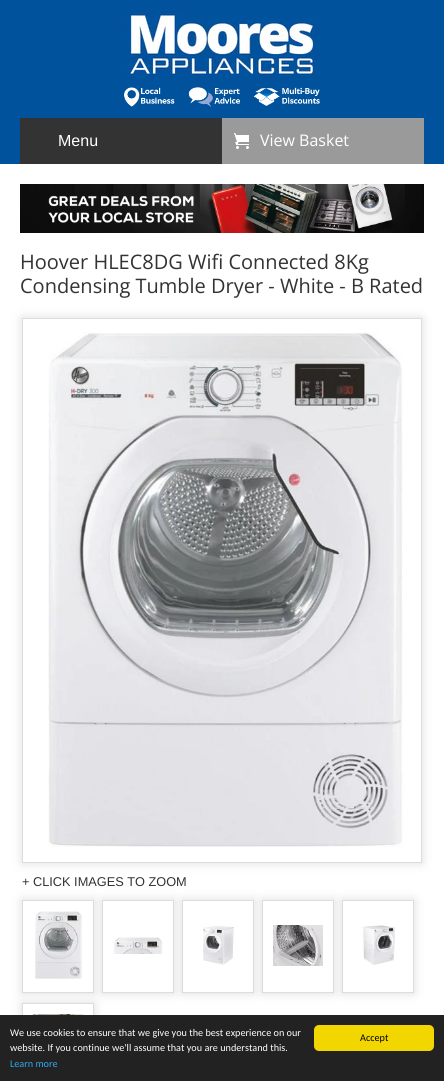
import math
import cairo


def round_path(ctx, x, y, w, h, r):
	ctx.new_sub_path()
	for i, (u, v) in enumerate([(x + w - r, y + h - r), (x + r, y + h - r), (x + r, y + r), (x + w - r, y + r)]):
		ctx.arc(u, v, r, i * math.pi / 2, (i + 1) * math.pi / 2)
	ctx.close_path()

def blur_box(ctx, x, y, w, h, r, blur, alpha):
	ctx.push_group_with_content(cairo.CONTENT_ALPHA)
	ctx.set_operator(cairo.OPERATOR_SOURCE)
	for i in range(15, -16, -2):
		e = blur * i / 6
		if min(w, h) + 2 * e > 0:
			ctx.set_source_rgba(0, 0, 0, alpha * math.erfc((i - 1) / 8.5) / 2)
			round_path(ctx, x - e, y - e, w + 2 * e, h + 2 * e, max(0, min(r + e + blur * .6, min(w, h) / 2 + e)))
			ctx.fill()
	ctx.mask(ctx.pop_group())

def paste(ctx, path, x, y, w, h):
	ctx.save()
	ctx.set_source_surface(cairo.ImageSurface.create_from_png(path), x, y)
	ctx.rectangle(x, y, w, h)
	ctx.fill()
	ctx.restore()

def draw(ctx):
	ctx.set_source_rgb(1, 1, 1)
	ctx.paint()
	ctx.set_source_rgb(0, 0.322, 0.612)
	ctx.rectangle(0, 0, 444, 164)
	ctx.fill()
	paste(ctx, 'media/1.png', 125, 10, 192, 67)
	paste(ctx, 'media/2.png', 124, 87, 196, 20)
	ctx.set_source_rgb(0.2, 0.2, 0.2)
	ctx.rectangle(20, 118, 202, 46)
	ctx.fill()
	ctx.select_font_face('Liberation Sans')
	ctx.set_font_size(16)
	ctx.set_source_rgb(1, 1, 1)
	ctx.move_to(58, 146)
	ctx.show_text('Menu')
	ctx.set_source_rgb(0.604, 0.604, 0.604)
	ctx.rectangle(222, 118, 202, 46)
	ctx.fill()
	paste(ctx, 'media/3.png', 234, 133, 15, 16)
	ctx.select_font_face('Open Sans')
	ctx.set_source_rgb(1, 1, 1)
	ctx.move_to(260, 146)
	ctx.show_text('View Basket')
	paste(ctx, 'media/4.png', 20, 184, 404, 49)
	ctx.set_font_size(20)
	ctx.set_source_rgb(0.2, 0.2, 0.2)
	ctx.move_to(20, 269)
	ctx.show_text('Hoover HLEC8DG Wifi Connected 8Kg')
	ctx.move_to(20, 293)
	ctx.show_text('Condensing Tumble Dryer - White - B Rated')
	ctx.save()
	ctx.set_fill_rule(cairo.FILL_RULE_EVEN_ODD)
	ctx.new_path()
	ctx.move_to(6, 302)
	ctx.line_to(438, 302)
	ctx.line_to(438, 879)
	ctx.line_to(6, 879)
	ctx.close_path()
	ctx.move_to(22, 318)
	ctx.line_to(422, 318)
	ctx.line_to(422, 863)
	ctx.line_to(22, 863)
	ctx.close_path()
	ctx.clip()
	ctx.set_source_rgb(0.867, 0.867, 0.867)
	blur_box(ctx, 22, 318, 400, 545, 0, 5, 1)
	ctx.restore()
	ctx.rectangle(22.5, 318.5, 399, 544)
	ctx.set_source_rgb(0.867, 0.867, 0.867)
	ctx.set_line_width(1)
	ctx.stroke()
	paste(ctx, 'media/5.png', 48, 332, 356, 515)
	ctx.select_font_face('Liberation Sans')
	ctx.set_font_size(12.75)
	ctx.set_source_rgb(0.2, 0.2, 0.2)
	ctx.move_to(22, 886)
	ctx.show_text('+ CLICK IMAGES TO ZOOM')
	ctx.save()
	ctx.set_fill_rule(cairo.FILL_RULE_EVEN_ODD)
	ctx.new_path()
	ctx.move_to(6, 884)
	ctx.line_to(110, 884)
	ctx.line_to(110, 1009)
	ctx.line_to(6, 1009)
	ctx.close_path()
	ctx.move_to(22, 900)
	ctx.line_to(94, 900)
	ctx.line_to(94, 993)
	ctx.line_to(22, 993)
	ctx.close_path()
	ctx.clip()
	ctx.set_source_rgb(0.867, 0.867, 0.867)
	blur_box(ctx, 22, 900, 72, 93, 0, 5, 1)
	ctx.restore()
	ctx.rectangle(22.5, 900.5, 71, 92)
	ctx.set_source_rgb(0.867, 0.867, 0.867)
	ctx.stroke()
	paste(ctx, 'media/6.png', 35, 911, 47, 68)
	ctx.save()
	ctx.set_fill_rule(cairo.FILL_RULE_EVEN_ODD)
	ctx.new_path()
	ctx.move_to(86, 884)
	ctx.line_to(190, 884)
	ctx.line_to(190, 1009)
	ctx.line_to(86, 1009)
	ctx.close_path()
	ctx.move_to(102, 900)
	ctx.line_to(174, 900)
	ctx.line_to(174, 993)
	ctx.line_to(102, 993)
	ctx.close_path()
	ctx.clip()
	ctx.set_source_rgb(0.867, 0.867, 0.867)
	blur_box(ctx, 102, 900, 72, 93, 0, 5, 1)
	ctx.restore()
	ctx.rectangle(102.5, 900.5, 71, 92)
	ctx.stroke()
	paste(ctx, 'media/7.png', 113, 937, 50, 17)
	ctx.save()
	ctx.set_fill_rule(cairo.FILL_RULE_EVEN_ODD)
	ctx.new_path()
	ctx.move_to(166, 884)
	ctx.line_to(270, 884)
	ctx.line_to(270, 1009)
	ctx.line_to(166, 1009)
	ctx.close_path()
	ctx.move_to(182, 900)
	ctx.line_to(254, 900)
	ctx.line_to(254, 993)
	ctx.line_to(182, 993)
	ctx.close_path()
	ctx.clip()
	ctx.set_source_rgb(0.867, 0.867, 0.867)
	blur_box(ctx, 182, 900, 72, 93, 0, 5, 1)
	ctx.restore()
	ctx.rectangle(182.5, 900.5, 71, 92)
	ctx.stroke()
	paste(ctx, 'media/8.png', 203, 926, 31, 39)
	ctx.save()
	ctx.set_fill_rule(cairo.FILL_RULE_EVEN_ODD)
	ctx.new_path()
	ctx.move_to(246, 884)
	ctx.line_to(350, 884)
	ctx.line_to(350, 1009)
	ctx.line_to(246, 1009)
	ctx.close_path()
	ctx.move_to(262, 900)
	ctx.line_to(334, 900)
	ctx.line_to(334, 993)
	ctx.line_to(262, 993)
	ctx.close_path()
	ctx.clip()
	ctx.set_source_rgb(0.867, 0.867, 0.867)
	blur_box(ctx, 262, 900, 72, 93, 0, 5, 1)
	ctx.restore()
	ctx.rectangle(262.5, 900.5, 71, 92)
	ctx.stroke()
	paste(ctx, 'media/9.png', 273, 925, 50, 41)
	ctx.save()
	ctx.set_fill_rule(cairo.FILL_RULE_EVEN_ODD)
	ctx.new_path()
	ctx.move_to(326, 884)
	ctx.line_to(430, 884)
	ctx.line_to(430, 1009)
	ctx.line_to(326, 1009)
	ctx.close_path()
	ctx.move_to(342, 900)
	ctx.line_to(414, 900)
	ctx.line_to(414, 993)
	ctx.line_to(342, 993)
	ctx.close_path()
	ctx.clip()
	ctx.set_source_rgb(0.867, 0.867, 0.867)
	blur_box(ctx, 342, 900, 72, 93, 0, 5, 1)
	ctx.restore()
	ctx.rectangle(342.5, 900.5, 71, 92)
	ctx.stroke()
	paste(ctx, 'media/10.png', 362, 925, 33, 40)
	ctx.save()
	ctx.set_fill_rule(cairo.FILL_RULE_EVEN_ODD)
	ctx.new_path()
	ctx.move_to(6, 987)
	ctx.line_to(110, 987)
	ctx.line_to(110, 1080)
	ctx.line_to(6, 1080)
	ctx.close_path()
	ctx.move_to(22, 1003)
	ctx.line_to(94, 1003)
	ctx.line_to(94, 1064)
	ctx.line_to(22, 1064)
	ctx.close_path()
	ctx.clip()
	ctx.set_source_rgb(0.867, 0.867, 0.867)
	blur_box(ctx, 22, 1003, 72, 61, 0, 5, 1)
	ctx.restore()
	ctx.rectangle(22.5, 1003.5, 71, 60)
	ctx.stroke()
	paste(ctx, 'media/11.png', 33, 1014, 50, 1)
	ctx.set_source_rgb(0.133, 0.133, 0.133)
	ctx.rectangle(0, 1015, 444, 66)
	ctx.fill()
	ctx.select_font_face('Carlito')
	ctx.set_font_size(10.2)
	ctx.set_source_rgb(1, 1, 1)
	ctx.move_to(10, 1036)
	ctx.show_text('We use cookies to ensure that we give you the best experience on our')
	ctx.move_to(10, 1051)
	ctx.show_text('website. If you continue we\'ll assume that you are understand this.')
	ctx.set_source_rgb(0.192, 0.659, 0.941)
	ctx.move_to(10, 1067)
	ctx.show_text('Learn more')
	ctx.set_source_rgb(0.945, 0.839, 0)
	round_path(ctx, 314, 1025, 120, 26, 5)
	ctx.fill()
	ctx.set_source_rgb(0, 0, 0)
	ctx.move_to(360, 1041)
	ctx.show_text('Accept')


surface = cairo.ImageSurface(cairo.FORMAT_RGB24, 444, 1081)
ctx = cairo.Context(surface)
options = cairo.FontOptions()
options.set_hint_metrics(cairo.HINT_METRICS_OFF)
options.set_hint_style(cairo.HINT_STYLE_NONE)
ctx.set_font_options(options)
ctx.set_miter_limit(4)
draw(ctx)
surface.write_to_png('image.png')
